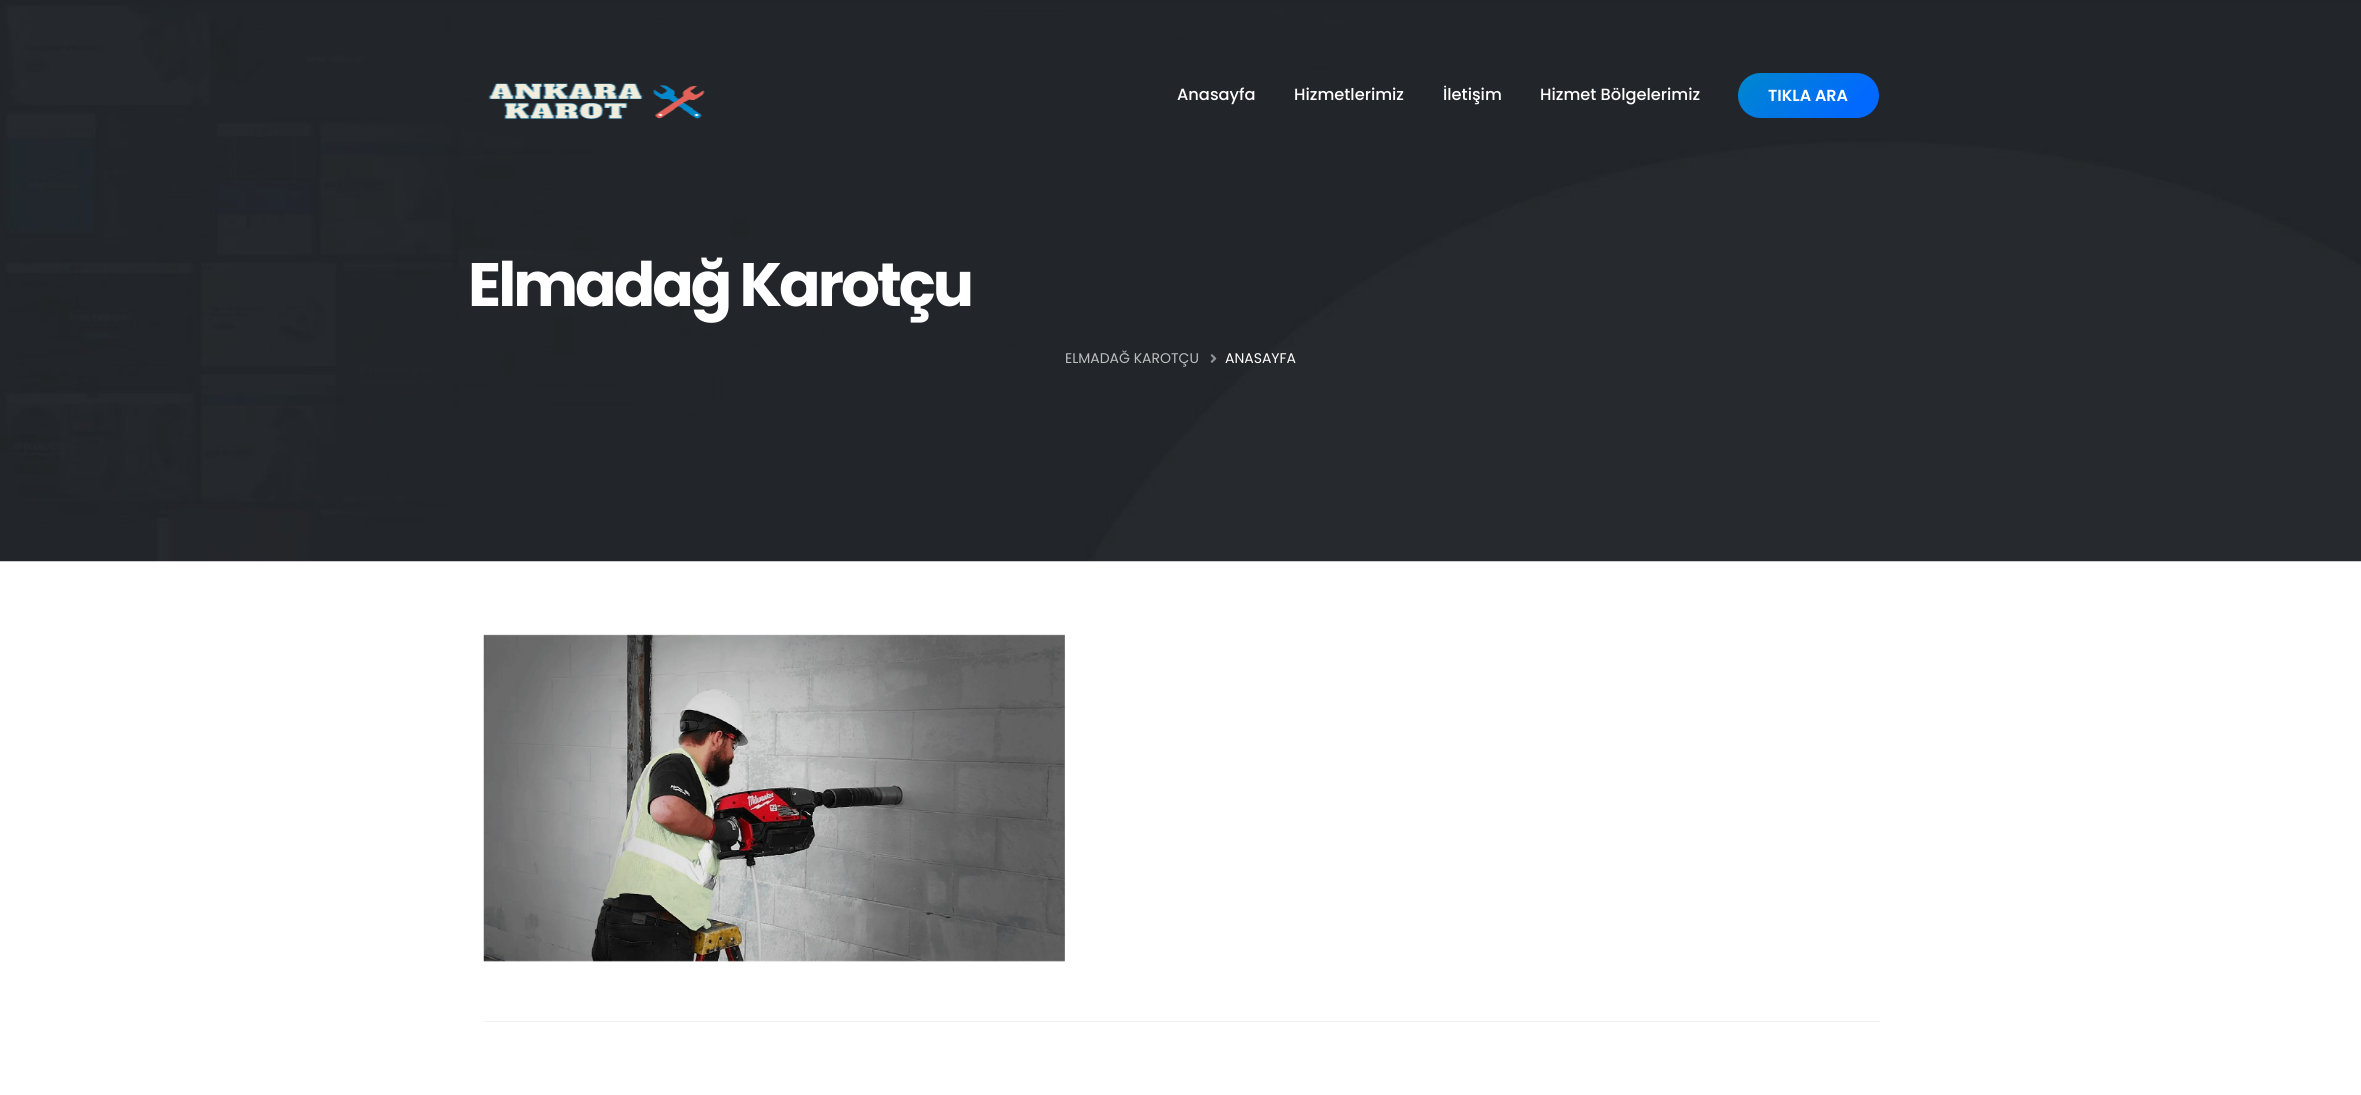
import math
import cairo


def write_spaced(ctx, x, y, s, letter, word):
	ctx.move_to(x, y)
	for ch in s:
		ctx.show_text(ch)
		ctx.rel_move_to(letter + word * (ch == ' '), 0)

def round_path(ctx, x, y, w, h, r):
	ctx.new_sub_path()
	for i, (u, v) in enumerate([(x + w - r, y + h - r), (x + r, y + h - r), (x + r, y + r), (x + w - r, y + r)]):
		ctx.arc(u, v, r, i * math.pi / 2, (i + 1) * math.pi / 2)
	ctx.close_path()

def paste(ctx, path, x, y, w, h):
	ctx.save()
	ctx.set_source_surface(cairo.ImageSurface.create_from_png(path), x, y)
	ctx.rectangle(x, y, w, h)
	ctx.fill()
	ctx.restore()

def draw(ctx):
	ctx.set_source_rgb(1, 1, 1)
	ctx.paint()
	paste(ctx, 'media/2.png', 0, 4, 2361, 558)
	paste(ctx, 'media/1.png', 488, 83, 217, 36)
	ctx.select_font_face('Poppins Medium')
	ctx.set_font_size(16.25)
	ctx.set_source_rgb(1, 1, 1)
	for x, y, s in [
		(1177, 100, 'Anasayfa'),
		(1294, 100, 'Hizmetlerimiz'),
		(1443, 100, 'İletişim'),
		(1540, 100, 'Hizmet Bölgelerimiz'),
	]:
		ctx.move_to(x, y)
		ctx.show_text(s)
	gradient = cairo.LinearGradient(1762, 48, 1855, 142)
	gradient.add_color_stop_rgba(0, 0, 0.533, 0.8, 1)
	gradient.add_color_stop_rgba(0.8, 0.004, 0.412, 0.996, 1)
	ctx.set_source(gradient)
	round_path(ctx, 1738, 73, 141, 45, 22.5)
	ctx.fill()
	ctx.select_font_face('Poppins SemiBold')
	ctx.set_font_size(16)
	ctx.set_source_rgb(1, 1, 1)
	ctx.move_to(1768, 101)
	ctx.show_text('TIKLA ARA')
	ctx.set_source_rgb(0.129, 0.145, 0.161)
	ctx.rectangle(0, 0, 2361, 4)
	ctx.fill()
	ctx.select_font_face('Poppins', cairo.FONT_SLANT_NORMAL, cairo.FONT_WEIGHT_BOLD)
	ctx.set_font_size(61.25)
	ctx.set_source_rgb(1, 1, 1)
	write_spaced(ctx, 468, 306, 'Elmadağ Karotçu', -3, 0)
	ctx.select_font_face('Poppins')
	ctx.set_font_size(14)
	ctx.set_source_rgb(0.741, 0.745, 0.749)
	ctx.move_to(1065, 363)
	ctx.show_text('ELMADAĞ KAROTÇU')
	paste(ctx, 'media/3.png', 1210, 354, 7, 9)
	ctx.set_source_rgb(1, 1, 1)
	ctx.move_to(1225, 363)
	ctx.show_text('ANASAYFA')
	paste(ctx, 'media/4.png', 483, 634, 582, 328)
	ctx.set_source_rgb(0.941, 0.941, 0.941)
	ctx.rectangle(484, 1021, 1395, 1)
	ctx.fill()


surface = cairo.ImageSurface(cairo.FORMAT_RGB24, 2361, 1095)
ctx = cairo.Context(surface)
options = cairo.FontOptions()
options.set_hint_metrics(cairo.HINT_METRICS_OFF)
options.set_hint_style(cairo.HINT_STYLE_NONE)
ctx.set_font_options(options)
ctx.set_miter_limit(4)
draw(ctx)
surface.write_to_png('image.png')
